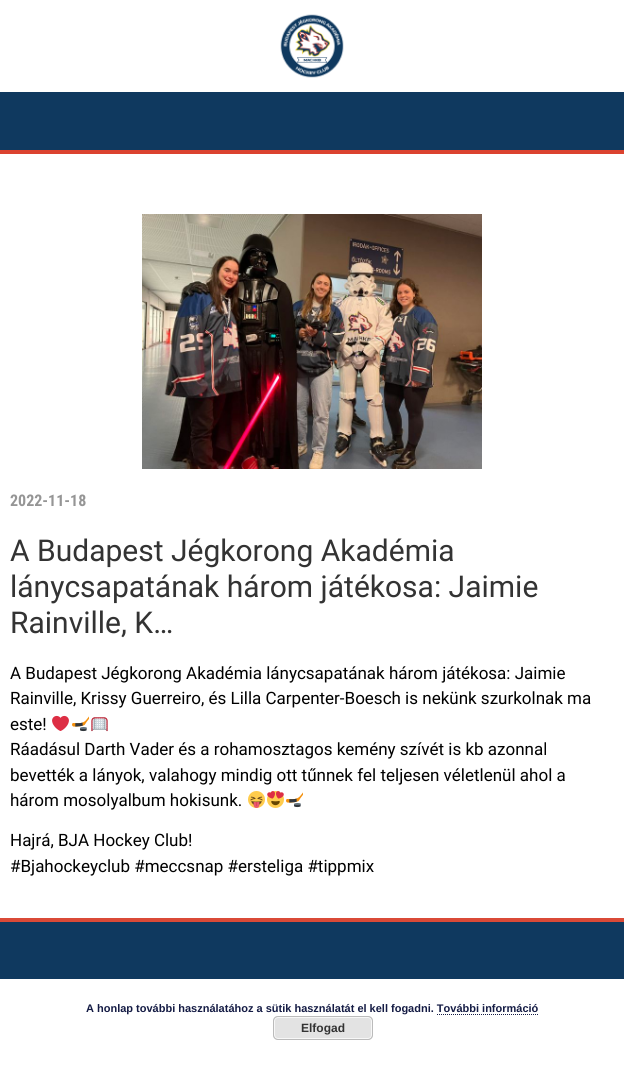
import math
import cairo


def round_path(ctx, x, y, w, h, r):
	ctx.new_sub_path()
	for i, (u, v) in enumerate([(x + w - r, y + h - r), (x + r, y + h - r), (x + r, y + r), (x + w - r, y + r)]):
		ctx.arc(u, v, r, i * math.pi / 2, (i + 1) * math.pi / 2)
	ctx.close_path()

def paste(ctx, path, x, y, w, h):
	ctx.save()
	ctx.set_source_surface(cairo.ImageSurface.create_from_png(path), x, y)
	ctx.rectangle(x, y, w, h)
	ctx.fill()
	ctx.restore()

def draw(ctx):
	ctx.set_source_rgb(1, 1, 1)
	ctx.paint()
	paste(ctx, 'media/1.png', 280, 14, 64, 64)
	ctx.set_source_rgb(0.059, 0.224, 0.373)
	ctx.rectangle(0, 92, 624, 58)
	ctx.fill()
	ctx.set_source_rgb(0.859, 0.259, 0.184)
	ctx.rectangle(0, 150, 624, 4)
	ctx.fill()
	paste(ctx, 'media/2.png', 142, 214, 340, 255)
	ctx.select_font_face('Roboto Condensed', cairo.FONT_SLANT_NORMAL, cairo.FONT_WEIGHT_BOLD)
	ctx.set_font_size(16)
	ctx.set_source_rgb(0.584, 0.584, 0.584)
	ctx.move_to(10, 506)
	ctx.show_text('2022-11-18')
	ctx.select_font_face('Roboto')
	ctx.set_font_size(30)
	ctx.set_source_rgb(0.2, 0.2, 0.2)
	for x, y, s in [
		(10, 561, 'A Budapest Jégkorong Akadémia'),
		(10, 597, 'lánycsapatának három játékosa: Jaimie'),
		(10, 633, 'Rainville, K…'),
	]:
		ctx.move_to(x, y)
		ctx.show_text(s)
	ctx.set_font_size(17)
	ctx.set_source_rgb(0, 0, 0)
	for x, y, s in [
		(10, 679, 'A Budapest Jégkorong Akadémia lánycsapatának három játékosa: Jaimie'),
		(10, 704, 'Rainville, Krissy Guerreiro, és Lilla Carpenter-Boesch is nekünk szurkolnak ma'),
		(10, 730, 'este!'),
	]:
		ctx.move_to(x, y)
		ctx.show_text(s)
	paste(ctx, 'media/3.png', 52, 715, 17, 16)
	paste(ctx, 'media/4.png', 72, 716, 17, 16)
	paste(ctx, 'media/5.png', 91, 717, 17, 15)
	for x, y, s in [
		(10, 755, 'Ráadásul Darth Vader és a rohamosztagos kemény szívét is kb azonnal'),
		(10, 781, 'bevették a lányok, valahogy mindig ott tűnnek fel teljesen véletlenül ahol a'),
		(10, 806, 'három mosolyalbum hokisunk.'),
	]:
		ctx.move_to(x, y)
		ctx.show_text(s)
	paste(ctx, 'media/6.png', 248, 791, 17, 17)
	paste(ctx, 'media/7.png', 267, 791, 17, 17)
	paste(ctx, 'media/4.png', 286, 792, 17, 16)
	ctx.move_to(10, 846)
	ctx.show_text('Hajrá, BJA Hockey Club!')
	ctx.move_to(10, 872)
	ctx.show_text('#Bjahockeyclub #meccsnap #ersteliga #tippmix')
	ctx.set_source_rgb(0.855, 0.29, 0.216)
	ctx.rectangle(0, 918, 624, 4)
	ctx.fill()
	ctx.set_source_rgb(0.059, 0.224, 0.373)
	ctx.rectangle(0, 922, 624, 57)
	ctx.fill()
	ctx.select_font_face('Liberation Sans', cairo.FONT_SLANT_NORMAL, cairo.FONT_WEIGHT_BOLD)
	ctx.set_font_size(11)
	ctx.set_source_rgb(0.082, 0.106, 0.267)
	ctx.move_to(86, 1012)
	ctx.show_text('A honlap további használatához a sütik használatát el kell fogadni. További információ')
	ctx.new_path()
	ctx.move_to(437, 1014.5)
	ctx.line_to(539, 1014.5)
	ctx.set_line_width(1)
	ctx.set_dash([1, 1])
	ctx.stroke()
	ctx.set_source_rgb(0.89, 0.89, 0.89)
	round_path(ctx, 273, 1016, 100, 24, 5)
	ctx.fill()
	round_path(ctx, 274.5, 1017.5, 97, 21, 3.5)
	ctx.set_source_rgb(0.965, 0.965, 0.965)
	ctx.set_dash([])
	ctx.stroke()
	round_path(ctx, 273.5, 1016.5, 99, 23, 4.5)
	ctx.set_source_rgb(0.733, 0.733, 0.733)
	ctx.stroke()
	ctx.set_font_size(12)
	ctx.set_source_rgb(0.2, 0.2, 0.2)
	ctx.move_to(301, 1032)
	ctx.show_text('Elfogad')


surface = cairo.ImageSurface(cairo.FORMAT_RGB24, 624, 1078)
ctx = cairo.Context(surface)
options = cairo.FontOptions()
options.set_hint_metrics(cairo.HINT_METRICS_OFF)
options.set_hint_style(cairo.HINT_STYLE_NONE)
ctx.set_font_options(options)
ctx.set_miter_limit(4)
draw(ctx)
surface.write_to_png('image.png')
